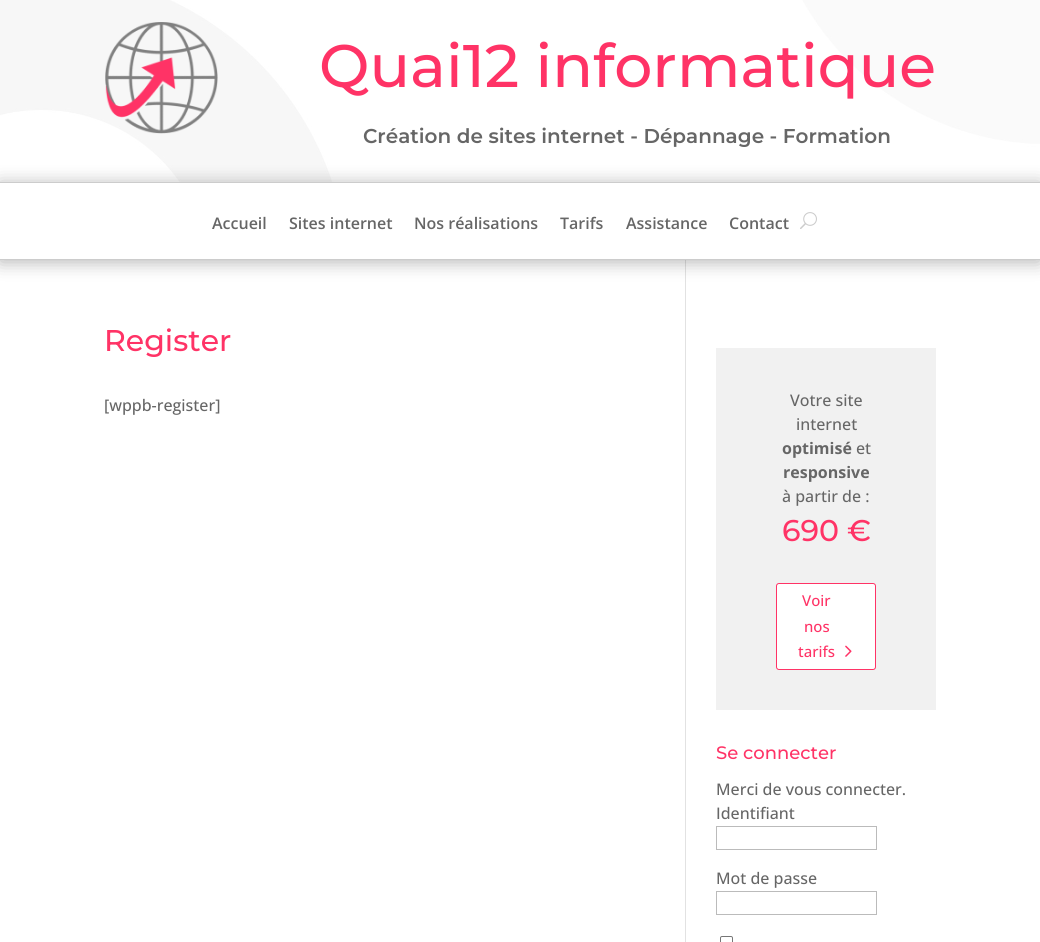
import math
import cairo


def round_path(ctx, x, y, w, h, r):
	ctx.new_sub_path()
	for i, (u, v) in enumerate([(x + w - r, y + h - r), (x + r, y + h - r), (x + r, y + r), (x + w - r, y + r)]):
		ctx.arc(u, v, r, i * math.pi / 2, (i + 1) * math.pi / 2)
	ctx.close_path()

def blur_box(ctx, x, y, w, h, r, blur, alpha):
	ctx.push_group_with_content(cairo.CONTENT_ALPHA)
	ctx.set_operator(cairo.OPERATOR_SOURCE)
	for i in range(15, -16, -2):
		e = blur * i / 6
		if min(w, h) + 2 * e > 0:
			ctx.set_source_rgba(0, 0, 0, alpha * math.erfc((i - 1) / 8.5) / 2)
			round_path(ctx, x - e, y - e, w + 2 * e, h + 2 * e, max(0, min(r + e + blur * .6, min(w, h) / 2 + e)))
			ctx.fill()
	ctx.mask(ctx.pop_group())

def paste(ctx, path, x, y, w, h):
	ctx.save()
	ctx.set_source_surface(cairo.ImageSurface.create_from_png(path), x, y)
	ctx.rectangle(x, y, w, h)
	ctx.fill()
	ctx.restore()

def draw(ctx):
	ctx.set_source_rgb(1, 1, 1)
	ctx.paint()
	paste(ctx, 'media/1.png', 0, 0, 1040, 182)
	paste(ctx, 'media/2.png', 105, 22, 113, 112)
	ctx.select_font_face('Montserrat Thin')
	ctx.set_font_size(60)
	ctx.set_source_rgb(1, 0.2, 0.4)
	ctx.move_to(319, 87)
	ctx.show_text('Quai12 informatique')
	ctx.select_font_face('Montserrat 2 Thin')
	ctx.set_font_size(20)
	ctx.set_source_rgb(0.4, 0.4, 0.4)
	ctx.move_to(363, 143)
	ctx.show_text('Création de sites internet - Dépannage - Formation')
	ctx.set_source_rgb(0.886, 0.886, 0.886)
	ctx.rectangle(685, 260, 1, 682)
	ctx.fill()
	ctx.save()
	ctx.set_fill_rule(cairo.FILL_RULE_EVEN_ODD)
	ctx.new_path()
	ctx.move_to(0, 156)
	ctx.line_to(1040, 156)
	ctx.line_to(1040, 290)
	ctx.line_to(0, 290)
	ctx.close_path()
	ctx.move_to(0, 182)
	ctx.line_to(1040, 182)
	ctx.line_to(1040, 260)
	ctx.line_to(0, 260)
	ctx.close_path()
	ctx.clip()
	ctx.set_source_rgb(0, 0, 0)
	blur_box(ctx, 0, 184, 1040, 78, 0, 9, 0.3)
	ctx.restore()
	ctx.set_source_rgb(0.8, 0.8, 0.8)
	ctx.rectangle(0, 182, 1040, 1)
	ctx.fill()
	ctx.rectangle(0, 259, 1040, 1)
	ctx.fill()
	ctx.select_font_face('Open Sans SemiBold')
	ctx.set_font_size(16)
	ctx.set_source_rgb(0.4, 0.4, 0.4)
	for x, y, s in [
		(212, 229, 'Accueil'),
		(289, 229, 'Sites internet'),
		(414, 229, 'Nos réalisations'),
		(560, 229, 'Tarifs'),
		(626, 229, 'Assistance'),
		(729, 229, 'Contact'),
	]:
		ctx.move_to(x, y)
		ctx.show_text(s)
	paste(ctx, 'media/3.png', 800, 212, 17, 17)
	ctx.select_font_face('Montserrat Thin')
	ctx.set_font_size(30)
	ctx.set_source_rgb(1, 0.2, 0.4)
	ctx.move_to(104, 351)
	ctx.show_text('Register')
	ctx.select_font_face('Open Sans Medium')
	ctx.set_font_size(16)
	ctx.set_source_rgb(0.4, 0.4, 0.4)
	ctx.move_to(104, 411)
	ctx.show_text('[wppb-register]')
	ctx.set_source_rgb(0.945, 0.945, 0.945)
	ctx.rectangle(716, 348, 220, 362)
	ctx.fill()
	ctx.set_source_rgb(0.4, 0.4, 0.4)
	ctx.move_to(790, 406)
	ctx.show_text('Votre site')
	ctx.move_to(796, 430)
	ctx.show_text('internet')
	ctx.select_font_face('Open Sans', cairo.FONT_SLANT_NORMAL, cairo.FONT_WEIGHT_BOLD)
	ctx.move_to(782, 454)
	ctx.show_text('optimisé')
	ctx.select_font_face('Open Sans Medium')
	ctx.move_to(856, 454)
	ctx.show_text('et')
	ctx.select_font_face('Open Sans', cairo.FONT_SLANT_NORMAL, cairo.FONT_WEIGHT_BOLD)
	ctx.move_to(783, 478)
	ctx.show_text('responsive')
	ctx.select_font_face('Open Sans Medium')
	ctx.move_to(782, 502)
	ctx.show_text('à partir de :')
	ctx.select_font_face('Montserrat Thin')
	ctx.set_font_size(30)
	ctx.set_source_rgb(1, 0.2, 0.4)
	ctx.move_to(782, 541)
	ctx.show_text('690 €')
	ctx.set_source_rgb(1, 1, 1)
	round_path(ctx, 776.5, 583.5, 99, 86, 2.5)
	ctx.fill_preserve()
	ctx.set_source_rgb(1, 0.2, 0.4)
	ctx.set_line_width(1)
	ctx.stroke()
	ctx.select_font_face('Open Sans Medium')
	ctx.set_font_size(15)
	for x, y, s in [
		(802, 606, 'Voir'),
		(804, 632, 'nos'),
		(798, 657, 'tarifs'),
	]:
		ctx.move_to(x, y)
		ctx.show_text(s)
	paste(ctx, 'media/4.png', 845, 645, 7, 12)
	ctx.select_font_face('Montserrat Thin')
	ctx.set_font_size(18)
	ctx.move_to(716, 759)
	ctx.show_text('Se connecter')
	ctx.select_font_face('Open Sans Medium')
	ctx.set_font_size(16)
	ctx.set_source_rgb(0.4, 0.4, 0.4)
	ctx.move_to(716, 795)
	ctx.show_text('Merci de vous connecter.')
	ctx.move_to(716, 819)
	ctx.show_text('Identifiant')
	ctx.rectangle(716.5, 826.5, 160, 23)
	ctx.set_source_rgb(0.733, 0.733, 0.733)
	ctx.stroke()
	ctx.set_source_rgb(0.4, 0.4, 0.4)
	ctx.move_to(716, 884)
	ctx.show_text('Mot de passe')
	ctx.rectangle(716.5, 891.5, 160, 23)
	ctx.set_source_rgb(0.733, 0.733, 0.733)
	ctx.stroke()
	round_path(ctx, 720.5, 936.5, 12, 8, 1.5)
	ctx.set_source_rgb(0.463, 0.463, 0.463)
	ctx.stroke()


surface = cairo.ImageSurface(cairo.FORMAT_RGB24, 1040, 942)
ctx = cairo.Context(surface)
options = cairo.FontOptions()
options.set_hint_metrics(cairo.HINT_METRICS_OFF)
options.set_hint_style(cairo.HINT_STYLE_NONE)
ctx.set_font_options(options)
ctx.set_miter_limit(4)
draw(ctx)
surface.write_to_png('image.png')
